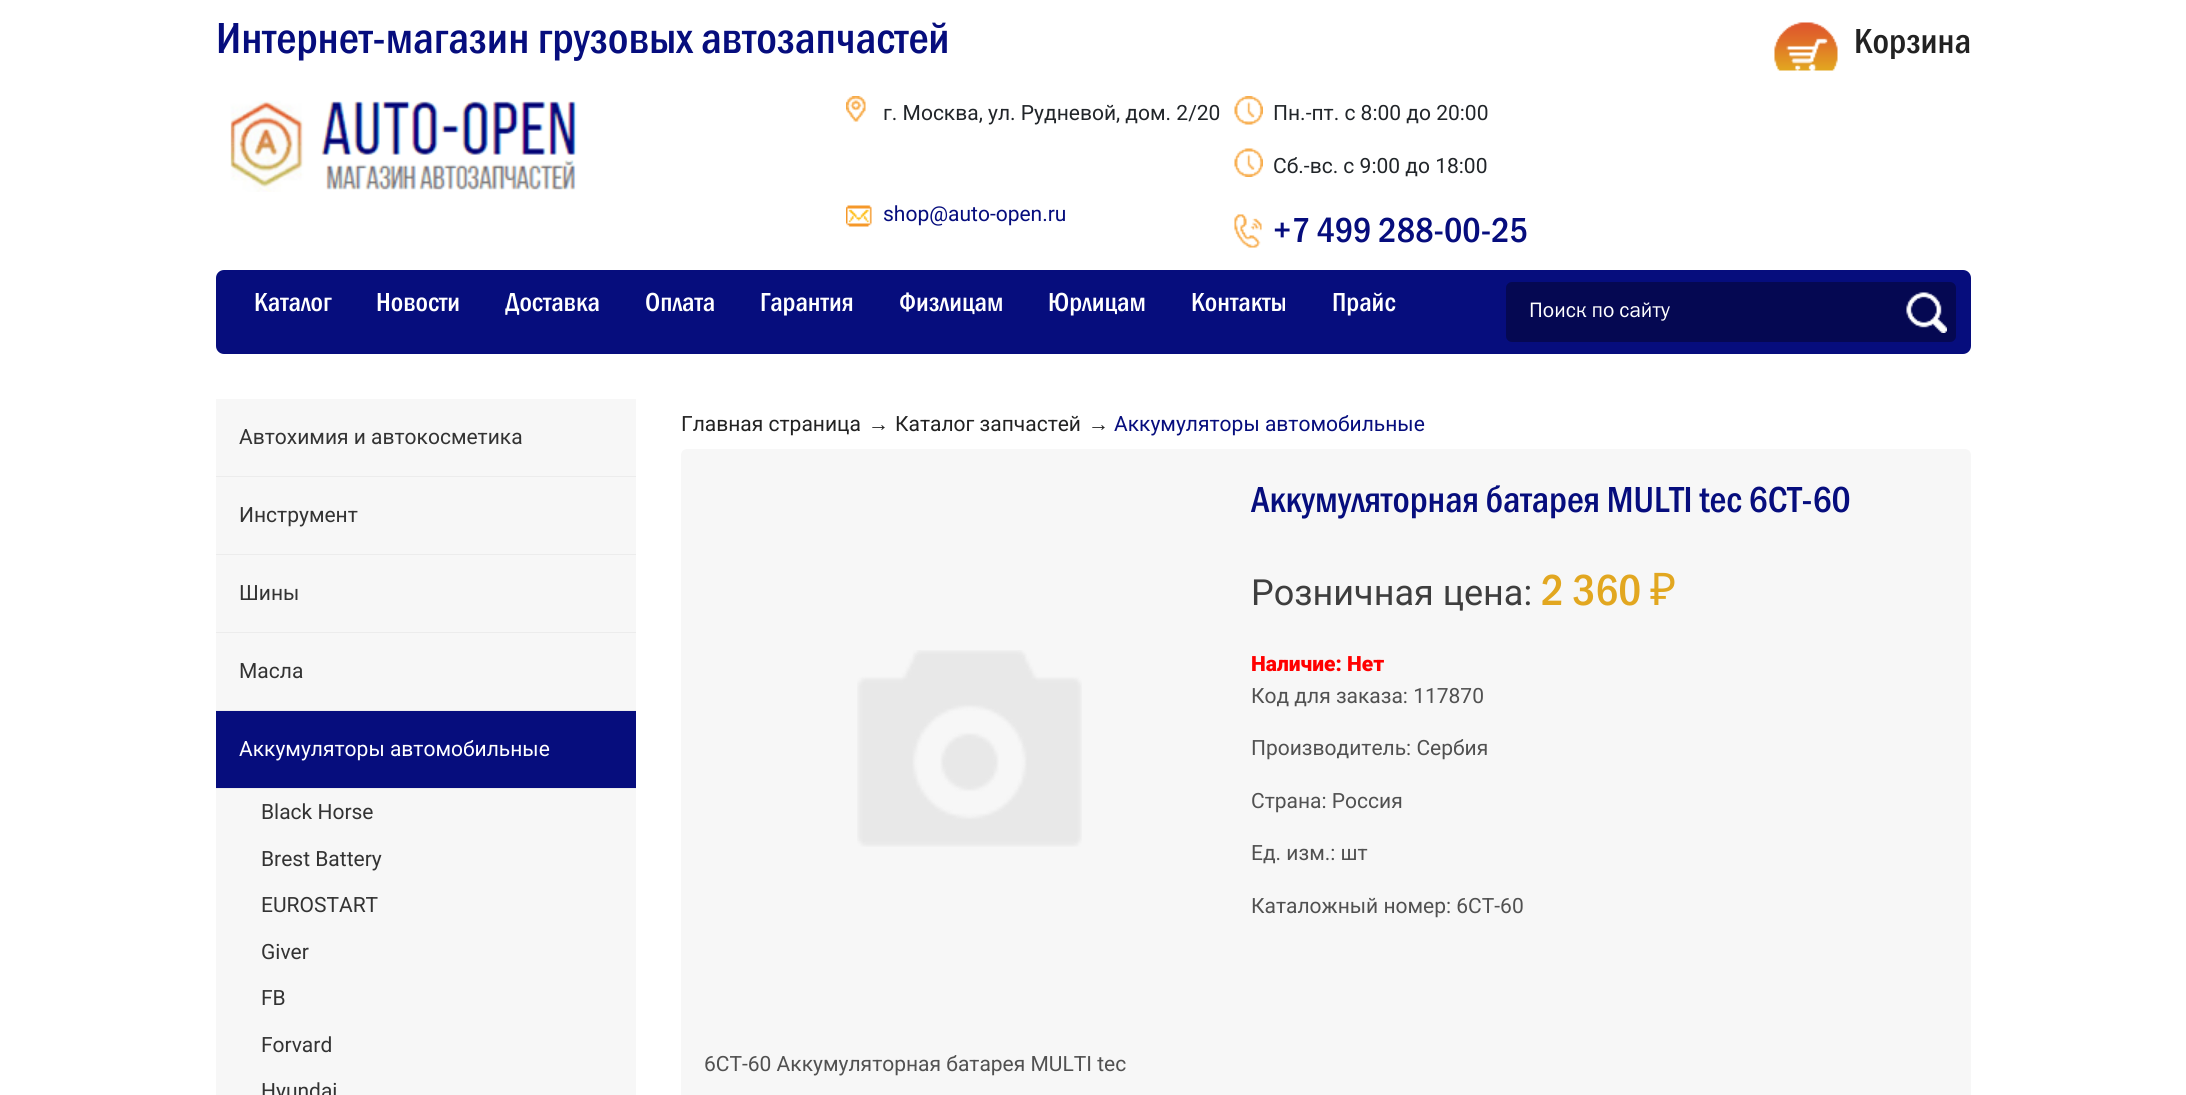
import math
import cairo


def round_path(ctx, x, y, w, h, r):
	ctx.new_sub_path()
	for i, (u, v) in enumerate([(x + w - r, y + h - r), (x + r, y + h - r), (x + r, y + r), (x + w - r, y + r)]):
		ctx.arc(u, v, r, i * math.pi / 2, (i + 1) * math.pi / 2)
	ctx.close_path()

def paste(ctx, path, x, y, w, h):
	ctx.save()
	ctx.set_source_surface(cairo.ImageSurface.create_from_png(path), x, y)
	ctx.rectangle(x, y, w, h)
	ctx.fill()
	ctx.restore()

def draw(ctx):
	ctx.set_source_rgb(1, 1, 1)
	ctx.paint()
	ctx.select_font_face('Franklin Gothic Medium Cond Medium')
	ctx.set_font_size(45)
	ctx.set_source_rgb(0.027, 0.051, 0.49)
	ctx.move_to(216, 53)
	ctx.show_text('Интернет-магазин грузовых автозапчастей')
	paste(ctx, 'media/1.png', 230, 100, 347, 92)
	paste(ctx, 'media/2.png', 846, 96, 20, 26)
	ctx.select_font_face('Roboto')
	ctx.set_font_size(21)
	ctx.set_source_rgb(0.129, 0.145, 0.161)
	ctx.move_to(883, 120)
	ctx.show_text('г. Москва, ул. Рудневой, дом. 2/20')
	paste(ctx, 'media/3.png', 846, 205, 26, 22)
	ctx.set_source_rgb(0.027, 0.051, 0.49)
	ctx.move_to(883, 221)
	ctx.show_text('shop@auto-open.ru')
	paste(ctx, 'media/4.png', 1234, 96, 29, 29)
	ctx.set_source_rgb(0.129, 0.145, 0.161)
	ctx.move_to(1273, 120)
	ctx.show_text('Пн.-пт. с 8:00 до 20:00')
	paste(ctx, 'media/5.png', 1234, 148, 29, 29)
	ctx.move_to(1273, 173)
	ctx.show_text('Сб.-вс. с 9:00 до 18:00')
	paste(ctx, 'media/6.png', 1234, 214, 28, 34)
	ctx.select_font_face('Franklin Gothic Medium Cond Medium')
	ctx.set_font_size(36)
	ctx.set_source_rgb(0.027, 0.051, 0.49)
	ctx.move_to(1273, 242)
	ctx.show_text('+7 499 288-00-25')
	paste(ctx, 'media/7.png', 1774, 22, 64, 49)
	ctx.set_source_rgb(0.133, 0.133, 0.133)
	ctx.move_to(1854, 53)
	ctx.show_text('Корзина')
	ctx.set_source_rgb(0.027, 0.051, 0.49)
	round_path(ctx, 216, 270, 1755, 84, 8)
	ctx.fill()
	ctx.set_font_size(27)
	ctx.set_source_rgb(1, 1, 1)
	for x, y, s in [
		(254, 311, 'Каталог'),
		(376, 311, 'Новости'),
		(505, 311, 'Доставка'),
		(645, 311, 'Оплата'),
		(760, 311, 'Гарантия'),
		(899, 311, 'Физлицам'),
		(1048, 311, 'Юрлицам'),
		(1191, 311, 'Контакты'),
		(1332, 311, 'Прайс'),
	]:
		ctx.move_to(x, y)
		ctx.show_text(s)
	ctx.set_source_rgb(0.02, 0.035, 0.322)
	round_path(ctx, 1506, 282, 450, 60, 6)
	ctx.fill()
	ctx.select_font_face('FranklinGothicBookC')
	ctx.set_font_size(21)
	ctx.set_source_rgb(1, 1, 1)
	ctx.move_to(1529, 317)
	ctx.show_text('Поиск по сайту')
	paste(ctx, 'media/8.png', 1906, 292, 41, 41)
	ctx.set_source_rgb(0.965, 0.965, 0.965)
	ctx.rectangle(216, 399, 420, 77)
	ctx.fill()
	ctx.set_source_rgb(0.925, 0.925, 0.925)
	ctx.rectangle(216, 476, 420, 1)
	ctx.fill()
	ctx.select_font_face('Roboto')
	ctx.set_source_rgb(0.2, 0.2, 0.2)
	ctx.move_to(239, 444)
	ctx.show_text('Автохимия и автокосметика')
	ctx.set_source_rgb(0.965, 0.965, 0.965)
	ctx.rectangle(216, 477, 420, 77)
	ctx.fill()
	ctx.set_source_rgb(0.925, 0.925, 0.925)
	ctx.rectangle(216, 554, 420, 1)
	ctx.fill()
	ctx.set_source_rgb(0.2, 0.2, 0.2)
	ctx.move_to(239, 522)
	ctx.show_text('Инструмент')
	ctx.set_source_rgb(0.965, 0.965, 0.965)
	ctx.rectangle(216, 555, 420, 77)
	ctx.fill()
	ctx.set_source_rgb(0.925, 0.925, 0.925)
	ctx.rectangle(216, 632, 420, 1)
	ctx.fill()
	ctx.set_source_rgb(0.2, 0.2, 0.2)
	ctx.move_to(239, 600)
	ctx.show_text('Шины')
	ctx.set_source_rgb(0.965, 0.965, 0.965)
	ctx.rectangle(216, 633, 420, 77)
	ctx.fill()
	ctx.set_source_rgb(0.925, 0.925, 0.925)
	ctx.rectangle(216, 710, 420, 1)
	ctx.fill()
	ctx.set_source_rgb(0.2, 0.2, 0.2)
	ctx.move_to(239, 678)
	ctx.show_text('Масла')
	ctx.set_source_rgb(0.027, 0.051, 0.49)
	ctx.rectangle(216, 711, 420, 77)
	ctx.fill()
	ctx.set_source_rgb(0.925, 0.925, 0.925)
	ctx.rectangle(216, 788, 420, 1)
	ctx.fill()
	ctx.set_source_rgb(1, 1, 1)
	ctx.move_to(239, 756)
	ctx.show_text('Аккумуляторы автомобильные')
	ctx.set_source_rgb(0.965, 0.965, 0.965)
	ctx.rectangle(216, 789, 420, 306)
	ctx.fill()
	ctx.set_source_rgb(0.2, 0.2, 0.2)
	for x, y, s in [
		(261, 819, 'Black Horse'),
		(261, 866, 'Brest Battery'),
		(261, 912, 'EUROSTART'),
		(261, 959, 'Giver'),
		(261, 1005, 'FB'),
		(261, 1052, 'Forvard'),
		(261, 1098, 'Hyundai'),
	]:
		ctx.move_to(x, y)
		ctx.show_text(s)
	ctx.set_source_rgb(0.133, 0.133, 0.133)
	ctx.move_to(681, 431)
	ctx.show_text('Главная страница')
	ctx.select_font_face('Liberation Sans')
	ctx.move_to(868, 431)
	ctx.show_text('→')
	ctx.select_font_face('Roboto')
	ctx.move_to(895, 431)
	ctx.show_text('Каталог запчастей')
	ctx.select_font_face('Liberation Sans')
	ctx.move_to(1088, 431)
	ctx.show_text('→')
	ctx.select_font_face('Roboto')
	ctx.set_source_rgb(0.027, 0.051, 0.49)
	ctx.move_to(1114, 431)
	ctx.show_text('Аккумуляторы автомобильные')
	ctx.set_source_rgb(0.965, 0.965, 0.965)
	round_path(ctx, 681, 449, 1290, 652, 6)
	ctx.fill()
	paste(ctx, 'media/9.png', 857, 650, 225, 197)
	ctx.select_font_face('Franklin Gothic Medium Cond Medium')
	ctx.set_font_size(37.5)
	ctx.set_source_rgb(0.027, 0.051, 0.49)
	ctx.move_to(1251, 512)
	ctx.show_text('Аккумуляторная батарея MULTI tec 6СТ-60')
	ctx.select_font_face('Roboto')
	ctx.set_font_size(36)
	ctx.set_source_rgb(0.243, 0.243, 0.243)
	ctx.move_to(1251, 605)
	ctx.show_text('Розничная цена:')
	ctx.select_font_face('Franklin Gothic Medium Cond Medium')
	ctx.set_font_size(45)
	ctx.set_source_rgb(0.886, 0.655, 0.125)
	ctx.move_to(1541, 605)
	ctx.show_text('2 360')
	ctx.select_font_face('Noto Sans')
	ctx.move_to(1650, 605)
	ctx.show_text('₽')
	ctx.select_font_face('Roboto Black')
	ctx.set_font_size(21)
	ctx.set_source_rgb(1, 0, 0)
	ctx.move_to(1251, 671)
	ctx.show_text('Наличие: Нет')
	ctx.select_font_face('Roboto')
	ctx.set_source_rgb(0.318, 0.318, 0.318)
	for x, y, s in [
		(1251, 703, 'Код для заказа: 117870'),
		(1251, 755, 'Производитель: Сербия'),
		(1251, 808, 'Страна: Россия'),
		(1251, 860, 'Ед. изм.: шт'),
		(1251, 913, 'Каталожный номер: 6СТ-60'),
		(704, 1071, '6СТ-60 Аккумуляторная батарея MULTI tec'),
	]:
		ctx.move_to(x, y)
		ctx.show_text(s)


surface = cairo.ImageSurface(cairo.FORMAT_RGB24, 2186, 1095)
ctx = cairo.Context(surface)
options = cairo.FontOptions()
options.set_hint_metrics(cairo.HINT_METRICS_OFF)
options.set_hint_style(cairo.HINT_STYLE_NONE)
ctx.set_font_options(options)
ctx.set_miter_limit(4)
draw(ctx)
surface.write_to_png('image.png')
